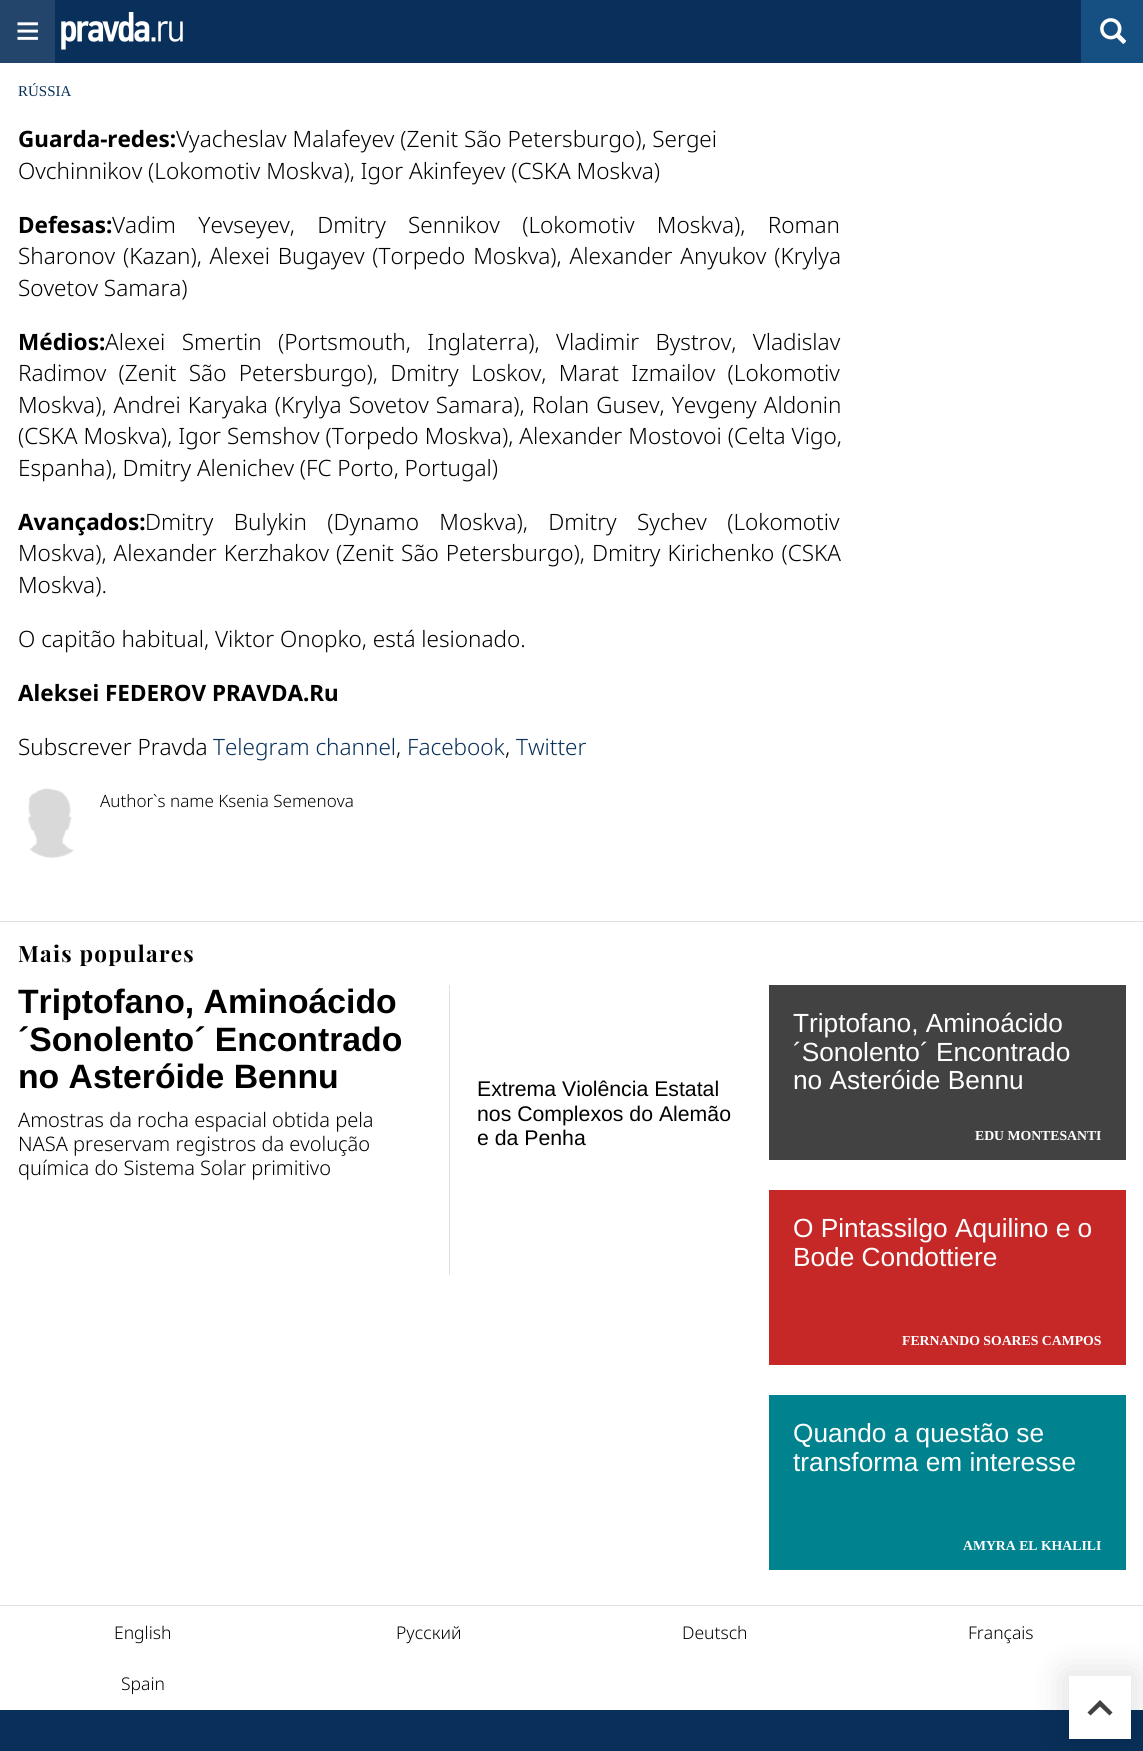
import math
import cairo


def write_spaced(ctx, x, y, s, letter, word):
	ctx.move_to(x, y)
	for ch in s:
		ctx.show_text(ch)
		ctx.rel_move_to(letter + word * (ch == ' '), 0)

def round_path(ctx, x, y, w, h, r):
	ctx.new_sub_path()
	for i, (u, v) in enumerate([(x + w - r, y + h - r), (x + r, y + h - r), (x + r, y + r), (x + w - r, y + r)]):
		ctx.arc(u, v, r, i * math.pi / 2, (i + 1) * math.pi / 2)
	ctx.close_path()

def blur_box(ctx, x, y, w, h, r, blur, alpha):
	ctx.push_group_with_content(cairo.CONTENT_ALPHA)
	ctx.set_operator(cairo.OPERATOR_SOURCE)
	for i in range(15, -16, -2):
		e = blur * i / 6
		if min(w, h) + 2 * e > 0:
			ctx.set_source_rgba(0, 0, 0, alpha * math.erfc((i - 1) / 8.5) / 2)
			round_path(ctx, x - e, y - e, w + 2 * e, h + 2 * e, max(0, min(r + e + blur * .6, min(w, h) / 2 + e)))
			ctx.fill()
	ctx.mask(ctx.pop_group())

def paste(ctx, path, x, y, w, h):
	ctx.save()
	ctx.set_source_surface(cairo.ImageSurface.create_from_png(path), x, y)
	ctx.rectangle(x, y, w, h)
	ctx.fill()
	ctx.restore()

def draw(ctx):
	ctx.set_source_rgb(1, 1, 1)
	ctx.paint()
	ctx.set_source_rgb(0.039, 0.188, 0.353)
	ctx.rectangle(55, 0, 1026, 63)
	ctx.fill()
	ctx.set_source_rgb(0.137, 0.271, 0.42)
	ctx.rectangle(0, 0, 55, 63)
	ctx.fill()
	paste(ctx, 'media/1.png', 17, 22, 21, 18)
	paste(ctx, 'media/2.png', 61, 12, 122, 38)
	ctx.set_source_rgb(0.086, 0.31, 0.51)
	ctx.rectangle(1081, 0, 62, 63)
	ctx.fill()
	paste(ctx, 'media/3.png', 1100, 18, 27, 26)
	ctx.set_source_rgb(0.878, 0.878, 0.878)
	ctx.rectangle(0, 921, 1143, 1)
	ctx.fill()
	ctx.select_font_face('Liberation Serif')
	ctx.set_font_size(15)
	ctx.set_source_rgb(0.039, 0.188, 0.353)
	ctx.move_to(18, 96)
	ctx.show_text('RÚSSIA')
	ctx.select_font_face('Noto Sans', cairo.FONT_SLANT_NORMAL, cairo.FONT_WEIGHT_BOLD)
	ctx.set_font_size(22.5)
	ctx.set_source_rgb(0, 0, 0)
	ctx.move_to(18, 147)
	ctx.show_text('Guarda-redes:')
	ctx.select_font_face('Noto Sans Light')
	ctx.move_to(176, 147)
	ctx.show_text('Vyacheslav Malafeyev (Zenit São Petersburgo), Sergei')
	ctx.move_to(18, 179)
	ctx.show_text('Ovchinnikov (Lokomotiv Moskva), Igor Akinfeyev (CSKA Moskva)')
	ctx.select_font_face('Noto Sans', cairo.FONT_SLANT_NORMAL, cairo.FONT_WEIGHT_BOLD)
	ctx.move_to(18, 233)
	ctx.show_text('Defesas:')
	ctx.select_font_face('Noto Sans Light')
	write_spaced(ctx, 112, 233, 'Vadim Yevseyev, Dmitry Sennikov (Lokomotiv Moskva), Roman', 0, 16.5)
	write_spaced(ctx, 18, 264, 'Sharonov (Kazan), Alexei Bugayev (Torpedo Moskva), Alexander Anyukov (Krylya', 0, 2)
	ctx.move_to(18, 296)
	ctx.show_text('Sovetov Samara)')
	ctx.select_font_face('Noto Sans', cairo.FONT_SLANT_NORMAL, cairo.FONT_WEIGHT_BOLD)
	ctx.move_to(18, 350)
	ctx.show_text('Médios:')
	ctx.select_font_face('Noto Sans Light')
	write_spaced(ctx, 105, 350, 'Alexei Smertin (Portsmouth, Inglaterra), Vladimir Bystrov, Vladislav', 0, 10.5)
	write_spaced(ctx, 18, 381, 'Radimov (Zenit São Petersburgo), Dmitry Loskov, Marat Izmailov (Lokomotiv', 0, 6.5)
	write_spaced(ctx, 18, 413, 'Moskva), Andrei Karyaka (Krylya Sovetov Samara), Rolan Gusev, Yevgeny Aldonin', 0, 1.25)
	write_spaced(ctx, 18, 444, '(CSKA Moskva), Igor Semshov (Torpedo Moskva), Alexander Mostovoi (Celta Vigo,', 0, 0.25)
	ctx.move_to(18, 476)
	ctx.show_text('Espanha), Dmitry Alenichev (FC Porto, Portugal)')
	ctx.select_font_face('Noto Sans', cairo.FONT_SLANT_NORMAL, cairo.FONT_WEIGHT_BOLD)
	ctx.move_to(18, 530)
	ctx.show_text('Avançados:')
	ctx.select_font_face('Noto Sans Light')
	write_spaced(ctx, 145, 530, 'Dmitry Bulykin (Dynamo Moskva), Dmitry Sychev (Lokomotiv', 0, 14.5)
	write_spaced(ctx, 18, 561, 'Moskva), Alexander Kerzhakov (Zenit São Petersburgo), Dmitry Kirichenko (CSKA', 0, 1.25)
	ctx.move_to(18, 593)
	ctx.show_text('Moskva).')
	ctx.move_to(18, 647)
	ctx.show_text('O capitão habitual, Viktor Onopko, está lesionado.')
	ctx.select_font_face('Noto Sans', cairo.FONT_SLANT_NORMAL, cairo.FONT_WEIGHT_BOLD)
	ctx.move_to(18, 701)
	ctx.show_text('Aleksei FEDEROV PRAVDA.Ru')
	ctx.select_font_face('Noto Sans Light')
	ctx.move_to(18, 755)
	ctx.show_text('Subscrever Pravda')
	ctx.set_source_rgb(0.039, 0.188, 0.353)
	ctx.move_to(213, 755)
	ctx.show_text('Telegram channel')
	ctx.set_source_rgb(0, 0, 0)
	ctx.move_to(396, 755)
	ctx.show_text(',')
	ctx.set_source_rgb(0.039, 0.188, 0.353)
	ctx.move_to(407, 755)
	ctx.show_text('Facebook')
	ctx.set_source_rgb(0, 0, 0)
	ctx.move_to(505, 755)
	ctx.show_text(',')
	ctx.set_source_rgb(0.039, 0.188, 0.353)
	ctx.move_to(516, 755)
	ctx.show_text('Twitter')
	paste(ctx, 'media/4.png', 28, 788, 46, 70)
	ctx.set_font_size(17)
	ctx.set_source_rgb(0, 0, 0)
	ctx.move_to(100, 807)
	ctx.show_text('Author`s name Ksenia Semenova')
	ctx.set_source_rgb(0.878, 0.878, 0.878)
	ctx.rectangle(0, 1605, 1143, 1)
	ctx.fill()
	ctx.select_font_face('Playfair Display', cairo.FONT_SLANT_NORMAL, cairo.FONT_WEIGHT_BOLD)
	ctx.set_font_size(22.5)
	ctx.set_source_rgb(0, 0, 0)
	write_spaced(ctx, 18, 962, 'Mais populares', 1.25, 0)
	ctx.select_font_face('Liberation Sans', cairo.FONT_SLANT_NORMAL, cairo.FONT_WEIGHT_BOLD)
	ctx.set_font_size(33.75)
	for x, y, s in [
		(18, 1013, 'Triptofano, Aminoácido'),
		(18, 1051, '´Sonolento´ Encontrado'),
		(18, 1088, 'no Asteróide Bennu'),
	]:
		ctx.move_to(x, y)
		ctx.show_text(s)
	ctx.select_font_face('Noto Sans Light')
	ctx.set_font_size(20)
	for x, y, s in [
		(18, 1127, 'Amostras da rocha espacial obtida pela'),
		(18, 1151, 'NASA preservam registros da evolução'),
		(18, 1175, 'química do Sistema Solar primitivo'),
	]:
		ctx.move_to(x, y)
		ctx.show_text(s)
	ctx.set_source_rgb(0.878, 0.878, 0.878)
	ctx.rectangle(449, 985, 1, 290)
	ctx.fill()
	ctx.select_font_face('Liberation Sans')
	ctx.set_font_size(21.25)
	ctx.set_source_rgb(0, 0, 0)
	for x, y, s in [
		(477, 1096, 'Extrema Violência Estatal'),
		(477, 1121, 'nos Complexos do Alemão'),
		(477, 1145, 'e da Penha'),
	]:
		ctx.move_to(x, y)
		ctx.show_text(s)
	ctx.set_source_rgb(0.259, 0.259, 0.259)
	ctx.rectangle(769, 985, 357, 175)
	ctx.fill()
	ctx.set_font_size(26.25)
	ctx.set_source_rgb(1, 1, 1)
	for x, y, s in [
		(793, 1032, 'Triptofano, Aminoácido'),
		(793, 1061, '´Sonolento´ Encontrado'),
		(793, 1089, 'no Asteróide Bennu'),
	]:
		ctx.move_to(x, y)
		ctx.show_text(s)
	ctx.select_font_face('Liberation Serif', cairo.FONT_SLANT_NORMAL, cairo.FONT_WEIGHT_BOLD)
	ctx.set_font_size(13.75)
	ctx.move_to(975, 1140)
	ctx.show_text('EDU MONTESANTI')
	ctx.set_source_rgb(0.776, 0.157, 0.157)
	ctx.rectangle(769, 1190, 357, 175)
	ctx.fill()
	ctx.select_font_face('Liberation Sans')
	ctx.set_font_size(26.25)
	ctx.set_source_rgb(1, 1, 1)
	ctx.move_to(793, 1237)
	ctx.show_text('O Pintassilgo Aquilino e o')
	ctx.move_to(793, 1266)
	ctx.show_text('Bode Condottiere')
	ctx.select_font_face('Liberation Serif', cairo.FONT_SLANT_NORMAL, cairo.FONT_WEIGHT_BOLD)
	ctx.set_font_size(13.75)
	ctx.move_to(902, 1345)
	ctx.show_text('FERNANDO SOARES CAMPOS')
	ctx.set_source_rgb(0, 0.514, 0.561)
	ctx.rectangle(769, 1395, 357, 175)
	ctx.fill()
	ctx.select_font_face('Liberation Sans')
	ctx.set_font_size(26.25)
	ctx.set_source_rgb(1, 1, 1)
	ctx.move_to(793, 1442)
	ctx.show_text('Quando a questão se')
	ctx.move_to(793, 1471)
	ctx.show_text('transforma em interesse')
	ctx.select_font_face('Liberation Serif', cairo.FONT_SLANT_NORMAL, cairo.FONT_WEIGHT_BOLD)
	ctx.set_font_size(13.75)
	ctx.move_to(963, 1550)
	ctx.show_text('AMYRA EL KHALILI')
	ctx.select_font_face('Noto Sans Light')
	ctx.set_font_size(17.5)
	ctx.set_source_rgb(0, 0, 0)
	for x, y, s in [
		(114, 1639, 'English'),
		(396, 1639, 'Русский'),
		(682, 1639, 'Deutsch'),
	]:
		ctx.move_to(x, y)
		ctx.show_text(s)
	ctx.set_source_rgb(0.039, 0.188, 0.353)
	ctx.rectangle(0, 1710, 1143, 41)
	ctx.fill()
	ctx.set_source_rgb(0, 0, 0)
	blur_box(ctx, 1065, 1673, 70, 70, 0, 17, 0.13)
	ctx.set_source_rgb(0, 0, 0)
	ctx.move_to(968, 1639)
	ctx.show_text('Français')
	ctx.move_to(121, 1690)
	ctx.show_text('Spain')
	ctx.set_source_rgb(1, 1, 1)
	ctx.rectangle(1069, 1676, 62, 63)
	ctx.fill()
	ctx.set_source_rgb(0.259, 0.259, 0.259)
	ctx.new_path()
	ctx.move_to(1100, 1700)
	ctx.line_to(1112.5, 1712.5)
	ctx.line_to(1109.5, 1715.5)
	ctx.line_to(1100, 1706.5)
	ctx.line_to(1090.5, 1715.5)
	ctx.line_to(1087.5, 1712.5)
	ctx.close_path()
	ctx.fill()


surface = cairo.ImageSurface(cairo.FORMAT_RGB24, 1143, 1751)
ctx = cairo.Context(surface)
options = cairo.FontOptions()
options.set_hint_metrics(cairo.HINT_METRICS_OFF)
options.set_hint_style(cairo.HINT_STYLE_NONE)
ctx.set_font_options(options)
ctx.set_miter_limit(4)
draw(ctx)
surface.write_to_png('image.png')
